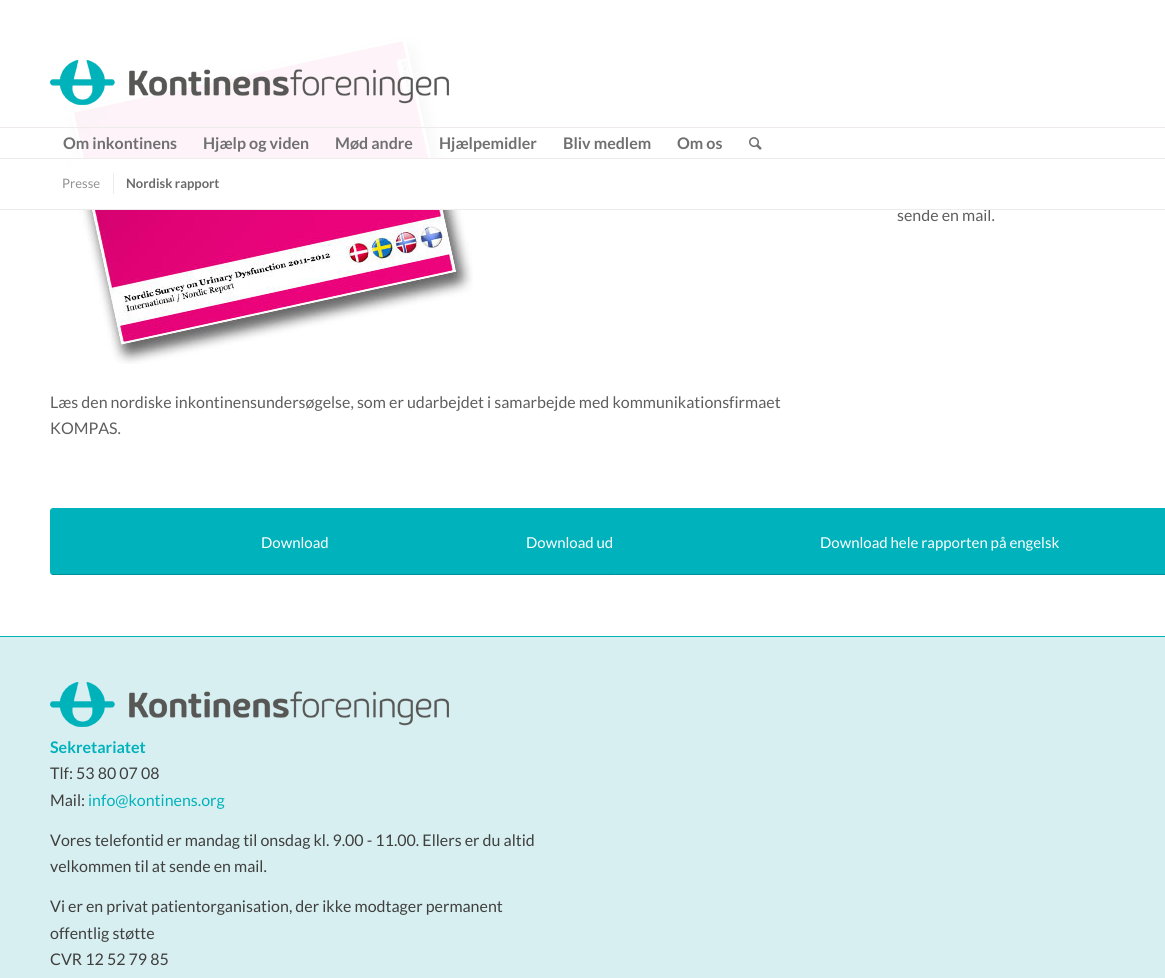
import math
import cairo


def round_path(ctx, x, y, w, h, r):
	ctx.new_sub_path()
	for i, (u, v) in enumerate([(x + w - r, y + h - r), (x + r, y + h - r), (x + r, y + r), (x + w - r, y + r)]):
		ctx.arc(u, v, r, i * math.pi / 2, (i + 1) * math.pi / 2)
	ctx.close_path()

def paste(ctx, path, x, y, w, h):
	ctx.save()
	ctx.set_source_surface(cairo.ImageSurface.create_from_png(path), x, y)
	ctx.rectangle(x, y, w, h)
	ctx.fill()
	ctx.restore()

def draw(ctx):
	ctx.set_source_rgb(1, 1, 1)
	ctx.paint()
	paste(ctx, 'media/3.png', 64, 35, 409, 329)
	ctx.set_source_rgba(1, 1, 1, 0.95)
	ctx.rectangle(64, 35, 384, 123)
	ctx.fill()
	paste(ctx, 'media/1.png', 50, 60, 399, 45)
	ctx.set_source_rgb(0.937, 0.918, 0.918)
	ctx.rectangle(0, 127, 1165, 1)
	ctx.fill()
	ctx.rectangle(0, 158, 1165, 1)
	ctx.fill()
	ctx.select_font_face('Lato', cairo.FONT_SLANT_NORMAL, cairo.FONT_WEIGHT_BOLD)
	ctx.set_font_size(16)
	ctx.set_source_rgb(0.439, 0.439, 0.439)
	for x, y, s in [
		(63, 149, 'Om inkontinens'),
		(203, 149, 'Hjælp og viden'),
		(335, 149, 'Mød andre'),
		(439, 149, 'Hjælpemidler'),
		(563, 149, 'Bliv medlem'),
		(677, 149, 'Om os'),
	]:
		ctx.move_to(x, y)
		ctx.show_text(s)
	paste(ctx, 'media/2.png', 749, 137, 13, 13)
	ctx.set_source_rgb(1, 1, 1)
	ctx.rectangle(71, 159, 389, 50)
	ctx.fill()
	ctx.select_font_face('Lato')
	ctx.set_source_rgb(0.369, 0.369, 0.369)
	ctx.move_to(897, 221)
	ctx.show_text('sende en mail.')
	ctx.set_source_rgb(0.937, 0.918, 0.918)
	ctx.rectangle(0, 209, 1165, 1)
	ctx.fill()
	ctx.set_font_size(13)
	ctx.set_source_rgb(0.569, 0.569, 0.569)
	ctx.move_to(62, 188)
	ctx.show_text('Presse')
	ctx.set_source_rgb(0.937, 0.918, 0.918)
	ctx.rectangle(113, 173, 1, 21)
	ctx.fill()
	ctx.select_font_face('Lato', cairo.FONT_SLANT_NORMAL, cairo.FONT_WEIGHT_BOLD)
	ctx.set_source_rgb(0.416, 0.416, 0.416)
	ctx.move_to(126, 188)
	ctx.show_text('Nordisk rapport')
	ctx.select_font_face('Lato')
	ctx.set_font_size(16)
	ctx.set_source_rgb(0.369, 0.369, 0.369)
	ctx.move_to(50, 408)
	ctx.show_text('Læs den nordiske inkontinensundersøgelse, som er udarbejdet i samarbejde med kommunikationsfirmaet')
	ctx.move_to(50, 434)
	ctx.show_text('KOMPAS.')
	ctx.set_source_rgb(0, 0.698, 0.733)
	round_path(ctx, 50, 508, 650, 67, 3)
	ctx.fill()
	ctx.set_source_rgb(0, 0.565, 0.6)
	ctx.rectangle(52, 574, 282, 1)
	ctx.fill()
	ctx.set_font_size(15)
	ctx.set_source_rgb(1, 1, 1)
	ctx.move_to(261, 548)
	ctx.show_text('Download')
	ctx.set_source_rgb(0, 0.698, 0.733)
	round_path(ctx, 332, 508, 650, 67, 3)
	ctx.fill()
	ctx.set_source_rgb(0, 0.565, 0.6)
	ctx.rectangle(334, 574, 282, 1)
	ctx.fill()
	ctx.set_source_rgb(1, 1, 1)
	ctx.move_to(526, 548)
	ctx.show_text('Download ud')
	ctx.set_source_rgb(0, 0.698, 0.733)
	ctx.new_path()
	ctx.move_to(617, 508)
	ctx.line_to(1165, 508)
	ctx.line_to(1165, 575)
	ctx.line_to(617, 575)
	ctx.curve_to(615.5, 575, 614, 573.5, 614, 572)
	ctx.line_to(614, 511)
	ctx.curve_to(614, 509.5, 615.5, 508, 617, 508)
	ctx.close_path()
	ctx.fill()
	ctx.set_source_rgb(0, 0.565, 0.6)
	ctx.rectangle(616, 574, 549, 1)
	ctx.fill()
	ctx.set_source_rgb(1, 1, 1)
	ctx.move_to(820, 548)
	ctx.show_text('Download hele rapporten på engelsk')
	ctx.set_source_rgb(0.843, 0.937, 0.945)
	ctx.rectangle(0, 637, 1165, 341)
	ctx.fill()
	ctx.set_source_rgb(0, 0.702, 0.733)
	ctx.rectangle(0, 636, 1165, 1)
	ctx.fill()
	paste(ctx, 'media/4.png', 50, 682, 399, 45)
	ctx.select_font_face('Lato', cairo.FONT_SLANT_NORMAL, cairo.FONT_WEIGHT_BOLD)
	ctx.set_font_size(16)
	ctx.set_source_rgb(0, 0.698, 0.733)
	ctx.move_to(50, 753)
	ctx.show_text('Sekretariatet')
	ctx.select_font_face('Lato')
	ctx.set_source_rgb(0.247, 0.247, 0.243)
	ctx.move_to(50, 779)
	ctx.show_text('Tlf: 53 80 07 08')
	ctx.move_to(50, 806)
	ctx.show_text('Mail:')
	ctx.set_source_rgb(0, 0.698, 0.733)
	ctx.move_to(88, 806)
	ctx.show_text('info@kontinens.org')
	ctx.set_source_rgb(0.247, 0.247, 0.243)
	for x, y, s in [
		(50, 846, 'Vores telefontid er mandag til onsdag kl. 9.00 - 11.00. Ellers er du altid'),
		(50, 872, 'velkommen til at sende en mail.'),
		(50, 912, 'Vi er en privat patientorganisation, der ikke modtager permanent'),
		(50, 939, 'offentlig støtte'),
		(50, 965, 'CVR 12 52 79 85'),
	]:
		ctx.move_to(x, y)
		ctx.show_text(s)


surface = cairo.ImageSurface(cairo.FORMAT_RGB24, 1165, 978)
ctx = cairo.Context(surface)
options = cairo.FontOptions()
options.set_hint_metrics(cairo.HINT_METRICS_OFF)
options.set_hint_style(cairo.HINT_STYLE_NONE)
ctx.set_font_options(options)
ctx.set_miter_limit(4)
draw(ctx)
surface.write_to_png('image.png')
